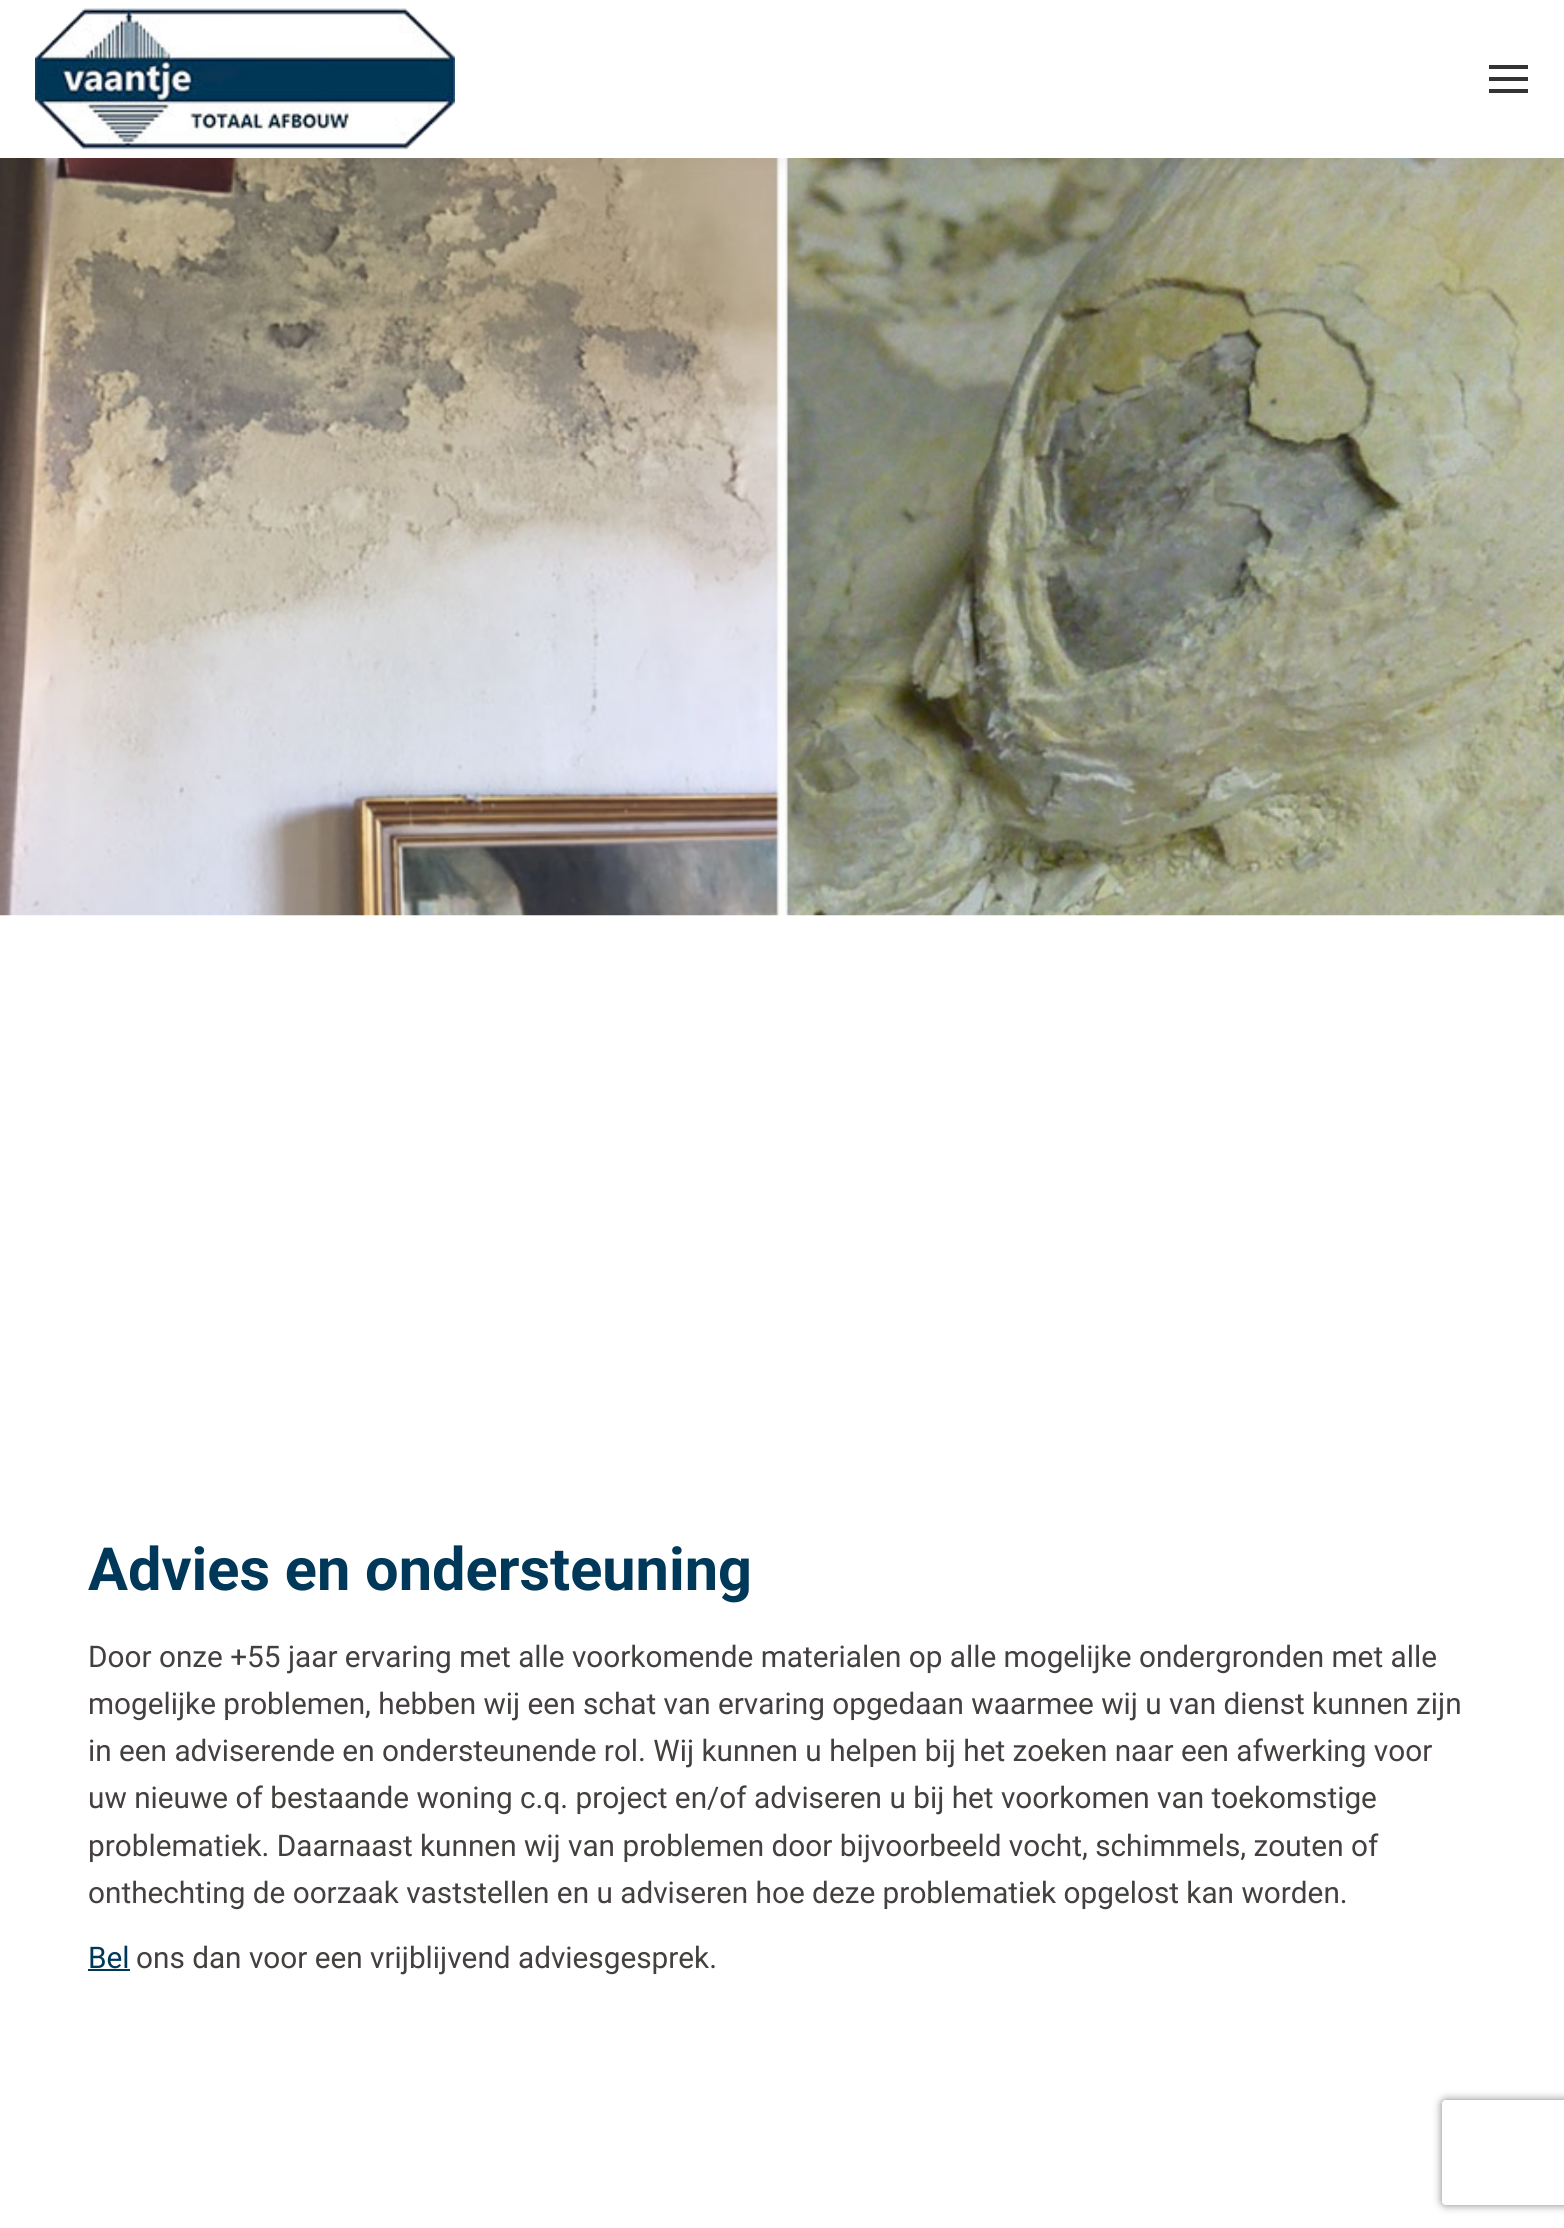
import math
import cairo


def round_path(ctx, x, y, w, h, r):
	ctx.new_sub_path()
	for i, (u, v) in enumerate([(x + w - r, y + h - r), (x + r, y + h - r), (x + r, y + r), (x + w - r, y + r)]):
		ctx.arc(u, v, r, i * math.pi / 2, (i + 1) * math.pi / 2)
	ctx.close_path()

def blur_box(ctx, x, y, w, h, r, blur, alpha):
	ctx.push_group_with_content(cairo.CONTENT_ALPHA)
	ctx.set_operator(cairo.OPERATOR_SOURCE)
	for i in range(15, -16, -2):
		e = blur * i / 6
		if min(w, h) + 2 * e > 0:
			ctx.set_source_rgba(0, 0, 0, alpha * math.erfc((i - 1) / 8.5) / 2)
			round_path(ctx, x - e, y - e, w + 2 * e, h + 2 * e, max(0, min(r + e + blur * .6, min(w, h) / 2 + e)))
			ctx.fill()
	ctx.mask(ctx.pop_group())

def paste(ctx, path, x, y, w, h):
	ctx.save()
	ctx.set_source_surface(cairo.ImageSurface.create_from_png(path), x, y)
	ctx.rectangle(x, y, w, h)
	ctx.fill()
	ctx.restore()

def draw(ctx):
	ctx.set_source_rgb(1, 1, 1)
	ctx.paint()
	paste(ctx, 'media/2.png', 0, 158, 1564, 758)
	ctx.set_source_rgb(0, 0, 0)
	blur_box(ctx, -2, -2, 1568, 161, 0, 13, 0.07)
	ctx.set_source_rgb(1, 1, 1)
	ctx.rectangle(0, 0, 1564, 158)
	ctx.fill()
	paste(ctx, 'media/1.png', 35, 8, 420, 142)
	ctx.set_source_rgb(0.2, 0.2, 0.2)
	ctx.rectangle(1489, 65, 39, 4)
	ctx.rectangle(1489, 77, 39, 4)
	ctx.rectangle(1489, 89, 39, 4)
	ctx.fill()
	ctx.select_font_face('Roboto', cairo.FONT_SLANT_NORMAL, cairo.FONT_WEIGHT_BOLD)
	ctx.set_font_size(59.5)
	ctx.set_source_rgb(0, 0.22, 0.349)
	ctx.move_to(88, 1590)
	ctx.show_text('Advies en ondersteuning')
	ctx.select_font_face('Roboto')
	ctx.set_font_size(29.75)
	ctx.set_source_rgb(0.267, 0.251, 0.247)
	for x, y, s in [
		(88, 1667, 'Door onze +55 jaar ervaring met alle voorkomende materialen op alle mogelijke ondergronden met alle'),
		(88, 1714, 'mogelijke problemen, hebben wij een schat van ervaring opgedaan waarmee wij u van dienst kunnen zijn'),
		(88, 1761, 'in een adviserende en ondersteunende rol. Wij kunnen u helpen bij het zoeken naar een afwerking voor'),
		(88, 1808, 'uw nieuwe of bestaande woning c.q. project en/of adviseren u bij het voorkomen van toekomstige'),
		(88, 1856, 'problematiek. Daarnaast kunnen wij van problemen door bijvoorbeeld vocht, schimmels, zouten of'),
		(88, 1903, 'onthechting de oorzaak vaststellen en u adviseren hoe deze problematiek opgelost kan worden.'),
	]:
		ctx.move_to(x, y)
		ctx.show_text(s)
	ctx.set_source_rgb(0, 0.22, 0.349)
	ctx.move_to(88, 1968)
	ctx.show_text('Bel')
	ctx.rectangle(88, 1969, 42, 2)
	ctx.fill()
	ctx.set_source_rgb(0.267, 0.251, 0.247)
	ctx.move_to(136, 1968)
	ctx.show_text('ons dan voor een vrijblijvend adviesgesprek.')
	ctx.save()
	ctx.set_fill_rule(cairo.FILL_RULE_EVEN_ODD)
	ctx.new_path()
	ctx.move_to(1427, 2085)
	ctx.line_to(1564, 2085)
	ctx.line_to(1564, 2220)
	ctx.line_to(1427, 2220)
	ctx.close_path()
	ctx.move_to(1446, 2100)
	ctx.line_to(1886, 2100)
	ctx.curve_to(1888, 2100, 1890, 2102, 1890, 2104)
	ctx.line_to(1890, 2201)
	ctx.curve_to(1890, 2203, 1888, 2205, 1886, 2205)
	ctx.line_to(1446, 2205)
	ctx.curve_to(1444, 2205, 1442, 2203, 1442, 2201)
	ctx.line_to(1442, 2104)
	ctx.curve_to(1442, 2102, 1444, 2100, 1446, 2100)
	ctx.close_path()
	ctx.clip()
	ctx.set_source_rgb(0.502, 0.502, 0.502)
	blur_box(ctx, 1442, 2100, 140, 105, 4, 4.5, 1)
	ctx.restore()


surface = cairo.ImageSurface(cairo.FORMAT_RGB24, 1564, 2228)
ctx = cairo.Context(surface)
options = cairo.FontOptions()
options.set_hint_metrics(cairo.HINT_METRICS_OFF)
options.set_hint_style(cairo.HINT_STYLE_NONE)
ctx.set_font_options(options)
ctx.set_miter_limit(4)
draw(ctx)
surface.write_to_png('image.png')
